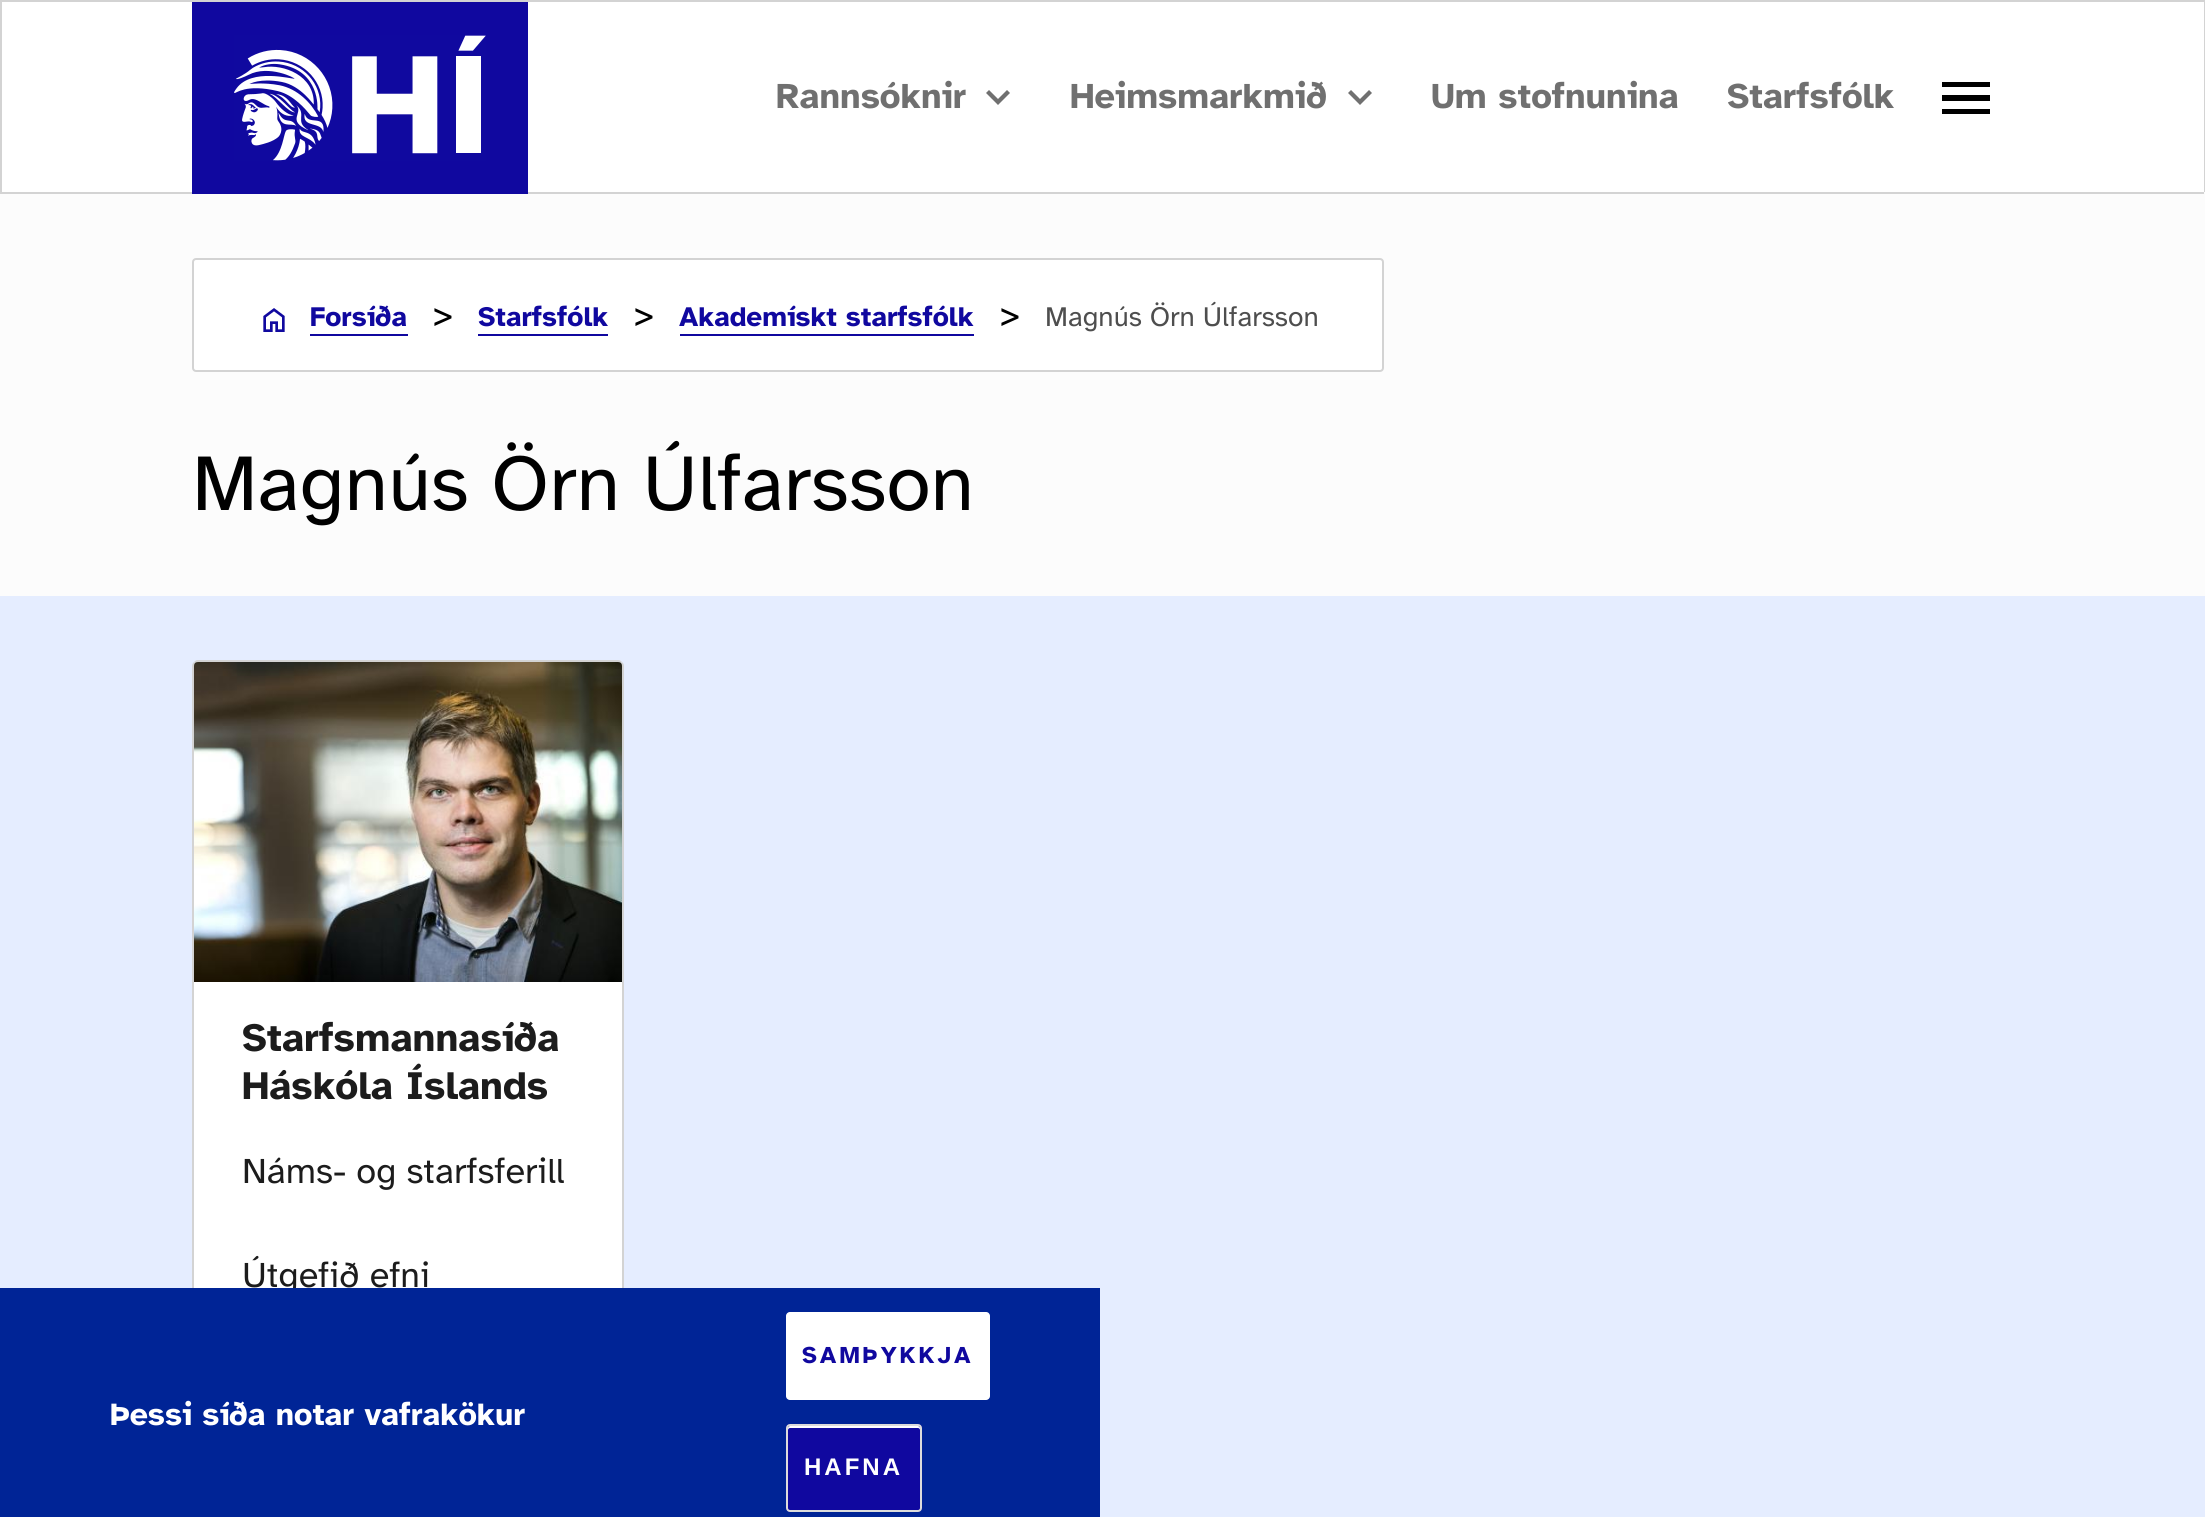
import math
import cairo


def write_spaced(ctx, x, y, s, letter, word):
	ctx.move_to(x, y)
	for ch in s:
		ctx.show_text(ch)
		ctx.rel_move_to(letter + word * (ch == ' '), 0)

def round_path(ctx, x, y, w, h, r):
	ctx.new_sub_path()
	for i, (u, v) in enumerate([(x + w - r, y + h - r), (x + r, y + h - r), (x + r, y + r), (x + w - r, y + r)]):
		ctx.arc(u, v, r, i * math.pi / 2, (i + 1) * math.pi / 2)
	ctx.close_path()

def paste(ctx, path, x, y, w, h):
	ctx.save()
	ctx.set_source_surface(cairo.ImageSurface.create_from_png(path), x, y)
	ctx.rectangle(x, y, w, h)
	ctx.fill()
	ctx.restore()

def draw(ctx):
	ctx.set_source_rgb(0.988, 0.988, 0.988)
	ctx.paint()
	ctx.set_source_rgb(0.827, 0.827, 0.827)
	ctx.rectangle(0, 0, 2205, 2)
	ctx.fill()
	ctx.set_source_rgb(1, 1, 1)
	ctx.rectangle(2, 2, 2202, 190)
	ctx.fill()
	ctx.set_source_rgb(0.827, 0.827, 0.827)
	ctx.rectangle(0, 192, 192, 2)
	ctx.rectangle(0, 2, 2, 192)
	ctx.fill()
	ctx.set_source_rgb(0.063, 0.035, 0.624)
	ctx.rectangle(192, 2, 336, 192)
	ctx.fill()
	paste(ctx, 'media/1.png', 234, 35, 252, 126)
	ctx.select_font_face('Atkinson Hyperlegible', cairo.FONT_SLANT_NORMAL, cairo.FONT_WEIGHT_BOLD)
	ctx.set_font_size(36)
	ctx.set_source_rgb(0.439, 0.439, 0.439)
	ctx.move_to(776, 108)
	ctx.show_text('Rannsóknir')
	ctx.set_fill_rule(cairo.FILL_RULE_EVEN_ODD)
	ctx.new_path()
	ctx.move_to(998, 105)
	ctx.line_to(986, 93)
	ctx.line_to(989, 90)
	ctx.line_to(998, 99)
	ctx.line_to(1007, 90)
	ctx.line_to(1010, 93)
	ctx.close_path()
	ctx.fill()
	ctx.move_to(1070, 108)
	ctx.show_text('Heimsmarkmið')
	ctx.new_path()
	ctx.move_to(1360, 105)
	ctx.line_to(1348, 93)
	ctx.line_to(1351, 90)
	ctx.line_to(1360, 99)
	ctx.line_to(1369, 90)
	ctx.line_to(1372, 93)
	ctx.close_path()
	ctx.fill()
	ctx.move_to(1431, 108)
	ctx.show_text('Um stofnunina')
	ctx.move_to(1727, 108)
	ctx.show_text('Starfsfólk')
	ctx.set_source_rgb(0, 0, 0)
	ctx.new_path()
	ctx.move_to(1942, 114)
	ctx.line_to(1942, 109)
	ctx.line_to(1990, 109)
	ctx.line_to(1990, 114)
	ctx.close_path()
	ctx.move_to(1942, 101)
	ctx.line_to(1942, 95)
	ctx.line_to(1990, 95)
	ctx.line_to(1990, 101)
	ctx.close_path()
	ctx.move_to(1942, 87)
	ctx.line_to(1942, 82)
	ctx.line_to(1990, 82)
	ctx.line_to(1990, 87)
	ctx.close_path()
	ctx.fill()
	ctx.set_source_rgb(0.827, 0.827, 0.827)
	ctx.rectangle(2204, 2, 1, 192)
	ctx.rectangle(2014, 192, 191, 2)
	ctx.rectangle(528, 192, 1486, 2)
	ctx.fill()
	ctx.set_source_rgb(1, 1, 1)
	round_path(ctx, 193, 259, 1190, 112, 3)
	ctx.fill_preserve()
	ctx.set_source_rgb(0.827, 0.827, 0.827)
	ctx.stroke()
	paste(ctx, 'media/2.png', 263, 308, 22, 24)
	ctx.set_font_size(28)
	ctx.set_source_rgb(0.063, 0.035, 0.624)
	ctx.move_to(310, 326)
	ctx.show_text('Forsíða')
	ctx.rectangle(310, 334, 98, 2)
	ctx.fill()
	ctx.select_font_face('Atkinson Hyperlegible')
	ctx.set_font_size(36)
	ctx.set_source_rgb(0, 0, 0)
	ctx.move_to(433, 326)
	ctx.show_text('>')
	ctx.select_font_face('Atkinson Hyperlegible', cairo.FONT_SLANT_NORMAL, cairo.FONT_WEIGHT_BOLD)
	ctx.set_font_size(28)
	ctx.set_source_rgb(0.063, 0.035, 0.624)
	ctx.move_to(478, 326)
	ctx.show_text('Starfsfólk')
	ctx.rectangle(478, 334, 130, 2)
	ctx.fill()
	ctx.select_font_face('Atkinson Hyperlegible')
	ctx.set_font_size(36)
	ctx.set_source_rgb(0, 0, 0)
	ctx.move_to(634, 326)
	ctx.show_text('>')
	ctx.select_font_face('Atkinson Hyperlegible', cairo.FONT_SLANT_NORMAL, cairo.FONT_WEIGHT_BOLD)
	ctx.set_font_size(28)
	ctx.set_source_rgb(0.063, 0.035, 0.624)
	ctx.move_to(679, 326)
	ctx.show_text('Akademískt starfsfólk')
	ctx.rectangle(680, 334, 294, 2)
	ctx.fill()
	ctx.select_font_face('Atkinson Hyperlegible')
	ctx.set_font_size(36)
	ctx.set_source_rgb(0, 0, 0)
	ctx.move_to(1000, 326)
	ctx.show_text('>')
	ctx.set_font_size(28)
	ctx.set_source_rgb(0.306, 0.306, 0.306)
	ctx.move_to(1045, 326)
	ctx.show_text('Magnús Örn Úlfarsson')
	ctx.set_font_size(80)
	ctx.set_source_rgb(0, 0, 0)
	ctx.move_to(192, 510)
	ctx.show_text('Magnús Örn Úlfarsson')
	ctx.set_source_rgb(0.898, 0.929, 1)
	ctx.rectangle(0, 596, 2205, 921)
	ctx.fill()
	ctx.set_source_rgb(1, 1, 1)
	ctx.set_fill_rule(cairo.FILL_RULE_WINDING)
	ctx.new_path()
	ctx.move_to(198, 662)
	ctx.line_to(618, 662)
	ctx.curve_to(620, 662, 622, 664, 622, 666)
	ctx.line_to(622, 1398)
	ctx.line_to(194, 1398)
	ctx.line_to(194, 666)
	ctx.curve_to(194, 664, 196, 662, 198, 662)
	ctx.close_path()
	ctx.fill()
	ctx.set_source_rgb(0.827, 0.827, 0.827)
	ctx.new_path()
	ctx.move_to(198, 660)
	ctx.curve_to(196, 660, 195, 661, 194, 662)
	ctx.line_to(195, 663)
	ctx.line_to(198, 662)
	ctx.line_to(618, 662)
	ctx.line_to(621, 663)
	ctx.line_to(622, 662)
	ctx.curve_to(621, 661, 620, 660, 618, 660)
	ctx.close_path()
	ctx.fill()
	ctx.new_path()
	ctx.move_to(624, 1400)
	ctx.line_to(624, 666)
	ctx.curve_to(624, 664, 623, 663, 622, 662)
	ctx.line_to(621, 663)
	ctx.curve_to(622, 664, 622, 665, 622, 666)
	ctx.line_to(622, 1398)
	ctx.line_to(623, 1403)
	ctx.close_path()
	ctx.fill()
	ctx.new_path()
	ctx.move_to(192, 666)
	ctx.line_to(192, 1400)
	ctx.line_to(193, 1403)
	ctx.line_to(194, 1398)
	ctx.line_to(194, 666)
	ctx.curve_to(194, 665, 194, 664, 195, 663)
	ctx.line_to(194, 662)
	ctx.curve_to(193, 663, 192, 664, 192, 666)
	ctx.close_path()
	ctx.fill()
	paste(ctx, 'media/3.png', 194, 662, 428, 320)
	ctx.select_font_face('Atkinson Hyperlegible', cairo.FONT_SLANT_NORMAL, cairo.FONT_WEIGHT_BOLD)
	ctx.set_font_size(40)
	ctx.set_source_rgb(0.11, 0.11, 0.11)
	ctx.move_to(242, 1051)
	ctx.show_text('Starfsmannasíða')
	ctx.move_to(242, 1099)
	ctx.show_text('Háskóla Íslands')
	ctx.select_font_face('Atkinson Hyperlegible')
	ctx.set_font_size(36)
	ctx.move_to(242, 1183)
	ctx.show_text('Náms- og starfsferill')
	ctx.move_to(242, 1287)
	ctx.show_text('Útgefið efni')
	ctx.set_source_rgb(0, 0.141, 0.588)
	ctx.rectangle(0, 1288, 1100, 229)
	ctx.fill()
	ctx.select_font_face('Atkinson Hyperlegible', cairo.FONT_SLANT_NORMAL, cairo.FONT_WEIGHT_BOLD)
	ctx.set_font_size(32)
	ctx.set_source_rgb(1, 1, 1)
	ctx.move_to(110, 1425)
	ctx.show_text('Þessi síða notar vafrakökur')
	round_path(ctx, 786, 1312, 204, 88, 4)
	ctx.fill()
	ctx.set_font_size(24)
	ctx.set_source_rgb(0.063, 0.035, 0.624)
	write_spaced(ctx, 802, 1363, 'SAMÞYKKJA', 3, 0)
	round_path(ctx, 786, 1424, 136, 88, 4)
	ctx.fill()
	ctx.set_source_rgb(1, 1, 1)
	ctx.new_path()
	ctx.move_to(790, 1428)
	ctx.line_to(918, 1428)
	ctx.curve_to(919, 1428, 920, 1429, 920, 1430)
	ctx.line_to(920, 1428)
	ctx.curve_to(920, 1427, 919, 1426, 918, 1426)
	ctx.line_to(790, 1426)
	ctx.curve_to(789, 1426, 788, 1427, 788, 1428)
	ctx.line_to(788, 1430)
	ctx.curve_to(788, 1429, 789, 1428, 790, 1428)
	ctx.close_path()
	ctx.fill()
	round_path(ctx, 787, 1425, 134, 86, 3)
	ctx.set_source_rgb(0.863, 0.863, 0.863)
	ctx.stroke()
	ctx.select_font_face('Liberation Sans', cairo.FONT_SLANT_NORMAL, cairo.FONT_WEIGHT_BOLD)
	ctx.set_source_rgb(1, 1, 1)
	write_spaced(ctx, 804, 1475, 'HAFNA', 3, 0)


surface = cairo.ImageSurface(cairo.FORMAT_RGB24, 2205, 1517)
ctx = cairo.Context(surface)
options = cairo.FontOptions()
options.set_hint_metrics(cairo.HINT_METRICS_OFF)
options.set_hint_style(cairo.HINT_STYLE_NONE)
ctx.set_font_options(options)
ctx.set_miter_limit(4)
draw(ctx)
surface.write_to_png('image.png')
